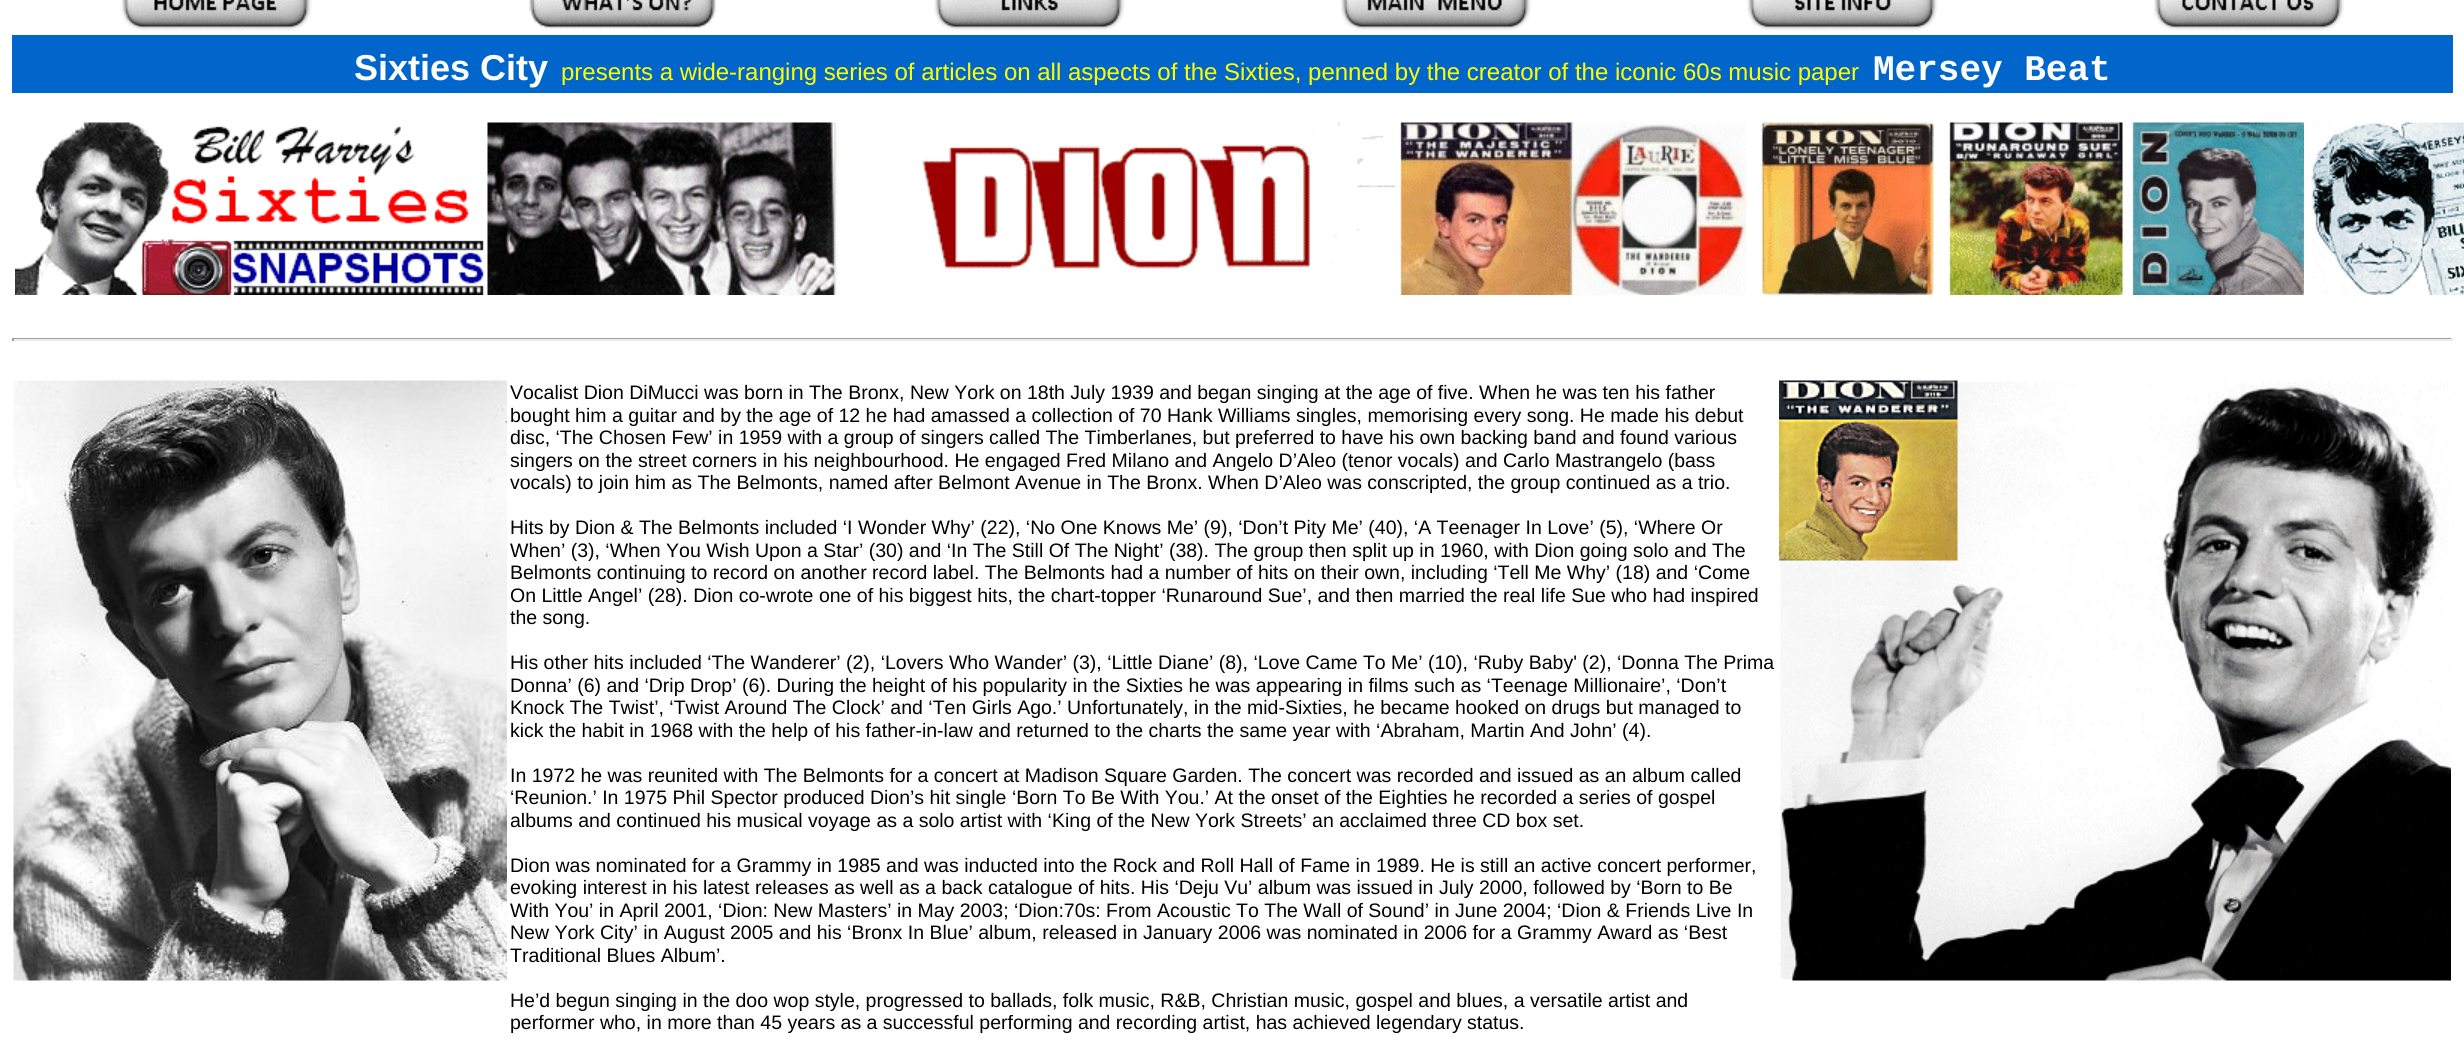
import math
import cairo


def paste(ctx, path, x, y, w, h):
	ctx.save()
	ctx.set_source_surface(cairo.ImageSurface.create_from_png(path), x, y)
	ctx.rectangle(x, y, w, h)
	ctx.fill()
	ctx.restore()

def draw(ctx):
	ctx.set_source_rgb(1, 1, 1)
	ctx.paint()
	paste(ctx, 'media/1.png', 121, 0, 191, 31)
	paste(ctx, 'media/2.png', 529, 0, 187, 29)
	paste(ctx, 'media/3.png', 934, 0, 191, 31)
	paste(ctx, 'media/4.png', 1341, 0, 190, 31)
	paste(ctx, 'media/5.png', 1747, 0, 191, 31)
	paste(ctx, 'media/6.png', 2154, 0, 190, 31)
	ctx.set_source_rgb(0, 0.4, 0.8)
	ctx.rectangle(12, 35, 2441, 58)
	ctx.fill()
	ctx.select_font_face('Liberation Sans', cairo.FONT_SLANT_NORMAL, cairo.FONT_WEIGHT_BOLD)
	ctx.set_font_size(36)
	ctx.set_source_rgb(1, 1, 1)
	ctx.move_to(354, 80)
	ctx.show_text('Sixties City')
	ctx.select_font_face('Liberation Sans')
	ctx.set_font_size(24)
	ctx.set_source_rgb(1, 1, 0)
	ctx.move_to(561, 80)
	ctx.show_text('presents a wide-ranging series of articles on all aspects of the Sixties, penned by the creator of the iconic 60s music paper')
	ctx.select_font_face('Liberation Mono', cairo.FONT_SLANT_NORMAL, cairo.FONT_WEIGHT_BOLD)
	ctx.set_font_size(36)
	ctx.set_source_rgb(1, 1, 1)
	ctx.move_to(1873, 80)
	ctx.show_text('Mersey Beat')
	paste(ctx, 'media/7.png', 15, 122, 470, 173)
	paste(ctx, 'media/8.png', 487, 122, 1817, 173)
	paste(ctx, 'media/9.png', 2311, 122, 153, 173)
	ctx.set_source_rgb(0.624, 0.624, 0.624)
	ctx.rectangle(12, 338, 2441, 1)
	ctx.fill()
	ctx.set_source_rgb(0.933, 0.933, 0.933)
	ctx.rectangle(2451, 338, 2, 3)
	ctx.rectangle(12, 339, 2441, 2)
	ctx.fill()
	ctx.set_source_rgb(0.624, 0.624, 0.624)
	ctx.rectangle(12, 338, 2, 3)
	ctx.fill()
	paste(ctx, 'media/10.png', 13, 380, 494, 601)
	ctx.select_font_face('Liberation Sans')
	ctx.set_font_size(19.5)
	ctx.set_source_rgb(0, 0, 0)
	for x, y, s in [
		(510, 399, 'Vocalist Dion DiMucci was born in The Bronx, New York on 18th July 1939 and began singing at the age of five. When he was ten his father'),
		(510, 422, 'bought him a guitar and by the age of 12 he had amassed a collection of 70 Hank Williams singles, memorising every song. He made his debut'),
		(510, 444, 'disc, ‘The Chosen Few’ in 1959 with a group of singers called The Timberlanes, but preferred to have his own backing band and found various'),
		(510, 467, 'singers on the street corners in his neighbourhood. He engaged Fred Milano and Angelo D’Aleo (tenor vocals) and Carlo Mastrangelo (bass'),
		(510, 489, 'vocals) to join him as The Belmonts, named after Belmont Avenue in The Bronx. When D’Aleo was conscripted, the group continued as a trio.'),
		(510, 534, 'Hits by Dion & The Belmonts included ‘I Wonder Why’ (22), ‘No One Knows Me’ (9), ‘Don’t Pity Me’ (40), ‘A Teenager In Love’ (5), ‘Where Or'),
		(510, 557, 'When’ (3), ‘When You Wish Upon a Star’ (30) and ‘In The Still Of The Night’ (38). The group then split up in 1960, with Dion going solo and The'),
		(510, 579, 'Belmonts continuing to record on another record label. The Belmonts had a number of hits on their own, including ‘Tell Me Why’ (18) and ‘Come'),
		(510, 602, 'On Little Angel’ (28). Dion co-wrote one of his biggest hits, the chart-topper ‘Runaround Sue’, and then married the real life Sue who had inspired'),
		(510, 624, 'the song.'),
		(510, 669, 'His other hits included ‘The Wanderer’ (2), ‘Lovers Who Wander’ (3), ‘Little Diane’ (8), ‘Love Came To Me’ (10), ‘Ruby Baby\' (2), ‘Donna The Prima'),
		(510, 692, 'Donna’ (6) and ‘Drip Drop’ (6). During the height of his popularity in the Sixties he was appearing in films such as ‘Teenage Millionaire’, ‘Don’t'),
		(510, 714, 'Knock The Twist’, ‘Twist Around The Clock’ and ‘Ten Girls Ago.’ Unfortunately, in the mid-Sixties, he became hooked on drugs but managed to'),
		(510, 737, 'kick the habit in 1968 with the help of his father-in-law and returned to the charts the same year with ‘Abraham, Martin And John’ (4).'),
		(510, 782, 'In 1972 he was reunited with The Belmonts for a concert at Madison Square Garden. The concert was recorded and issued as an album called'),
		(510, 804, '‘Reunion.’ In 1975 Phil Spector produced Dion’s hit single ‘Born To Be With You.’ At the onset of the Eighties he recorded a series of gospel'),
		(510, 827, 'albums and continued his musical voyage as a solo artist with ‘King of the New York Streets’ an acclaimed three CD box set.'),
		(510, 872, 'Dion was nominated for a Grammy in 1985 and was inducted into the Rock and Roll Hall of Fame in 1989. He is still an active concert performer,'),
		(510, 894, 'evoking interest in his latest releases as well as a back catalogue of hits. His ‘Deju Vu’ album was issued in July 2000, followed by ‘Born to Be'),
		(510, 917, 'With You’ in April 2001, ‘Dion: New Masters’ in May 2003; ‘Dion:70s: From Acoustic To The Wall of Sound’ in June 2004; ‘Dion & Friends Live In'),
		(510, 939, 'New York City’ in August 2005 and his ‘Bronx In Blue’ album, released in January 2006 was nominated in 2006 for a Grammy Award as ‘Best'),
		(510, 962, 'Traditional Blues Album’.'),
		(510, 1007, 'He’d begun singing in the doo wop style, progressed to ballads, folk music, R&B, Christian music, gospel and blues, a versatile artist and'),
		(510, 1029, 'performer who, in more than 45 years as a successful performing and recording artist, has achieved legendary status.'),
	]:
		ctx.move_to(x, y)
		ctx.show_text(s)
	paste(ctx, 'media/11.png', 1779, 380, 672, 601)


surface = cairo.ImageSurface(cairo.FORMAT_RGB24, 2464, 1057)
ctx = cairo.Context(surface)
options = cairo.FontOptions()
options.set_hint_metrics(cairo.HINT_METRICS_OFF)
options.set_hint_style(cairo.HINT_STYLE_NONE)
ctx.set_font_options(options)
ctx.set_miter_limit(4)
draw(ctx)
surface.write_to_png('image.png')
